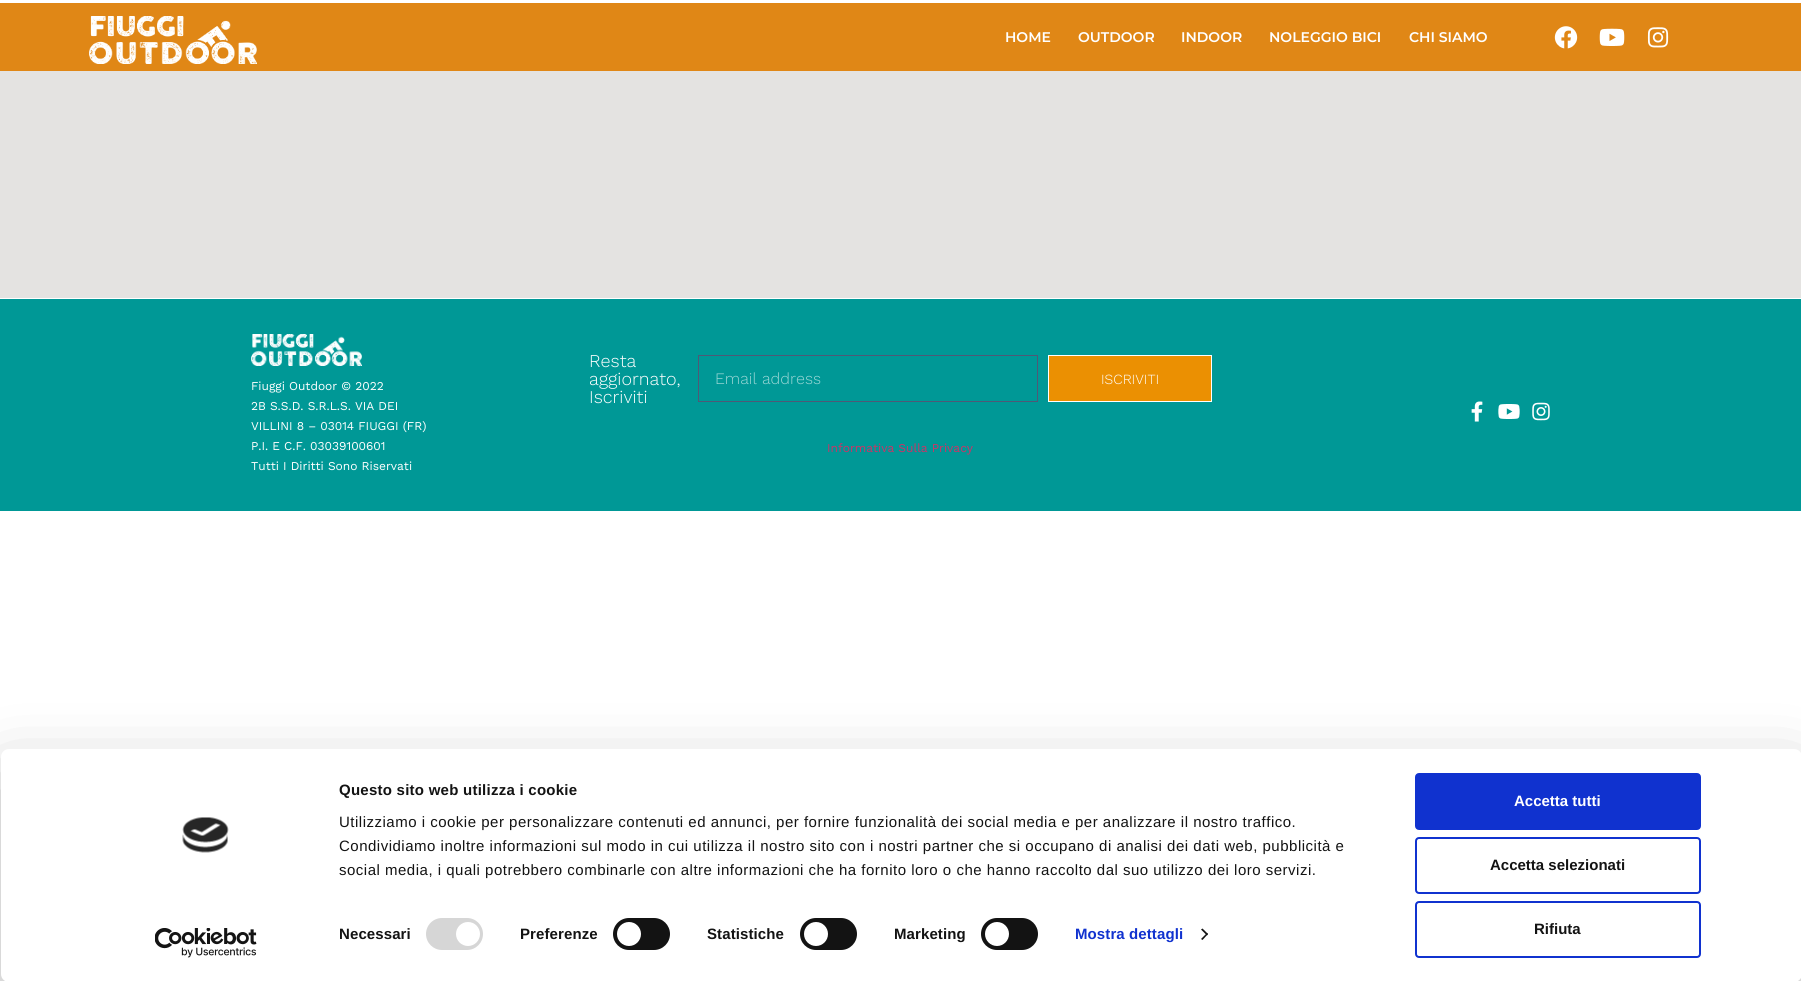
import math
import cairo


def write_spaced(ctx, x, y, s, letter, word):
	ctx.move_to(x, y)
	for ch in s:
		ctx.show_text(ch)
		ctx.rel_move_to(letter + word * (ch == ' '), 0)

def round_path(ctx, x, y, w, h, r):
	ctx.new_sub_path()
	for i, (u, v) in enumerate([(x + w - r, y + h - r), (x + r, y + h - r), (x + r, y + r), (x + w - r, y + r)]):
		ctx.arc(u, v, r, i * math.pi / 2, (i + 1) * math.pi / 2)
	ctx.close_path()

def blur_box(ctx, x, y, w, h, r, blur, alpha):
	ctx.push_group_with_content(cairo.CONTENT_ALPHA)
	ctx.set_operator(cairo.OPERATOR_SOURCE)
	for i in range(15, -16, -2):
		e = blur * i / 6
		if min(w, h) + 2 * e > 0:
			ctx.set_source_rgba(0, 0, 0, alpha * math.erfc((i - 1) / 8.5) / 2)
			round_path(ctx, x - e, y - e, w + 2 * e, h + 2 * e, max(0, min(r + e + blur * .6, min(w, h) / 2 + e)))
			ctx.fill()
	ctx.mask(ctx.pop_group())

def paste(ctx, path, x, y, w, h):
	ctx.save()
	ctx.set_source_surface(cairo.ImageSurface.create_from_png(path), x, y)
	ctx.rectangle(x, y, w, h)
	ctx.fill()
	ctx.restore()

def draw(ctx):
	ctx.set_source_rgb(1, 1, 1)
	ctx.paint()
	ctx.set_source_rgb(0.878, 0.529, 0.086)
	ctx.rectangle(0, 3, 1801, 68)
	ctx.fill()
	paste(ctx, 'media/1.png', 89, 16, 168, 48)
	ctx.select_font_face('Montserrat SemiBold')
	ctx.set_font_size(14)
	ctx.set_source_rgb(1, 1, 1)
	for x, y, s in [
		(1005, 42, 'HOME'),
		(1078, 42, 'OUTDOOR'),
		(1181, 42, 'INDOOR'),
		(1269, 42, 'NOLEGGIO BICI'),
		(1409, 42, 'CHI SIAMO'),
	]:
		ctx.move_to(x, y)
		ctx.show_text(s)
	paste(ctx, 'media/2.png', 1554, 26, 24, 23)
	paste(ctx, 'media/3.png', 1599, 28, 26, 18)
	paste(ctx, 'media/4.png', 1647, 27, 22, 21)
	ctx.set_source_rgb(0.894, 0.89, 0.882)
	ctx.rectangle(0, 71, 1801, 227)
	ctx.fill()
	ctx.set_source_rgb(0, 0.596, 0.588)
	ctx.rectangle(0, 299, 1801, 212)
	ctx.fill()
	paste(ctx, 'media/5.png', 251, 334, 111, 32)
	ctx.select_font_face('Work Sans')
	ctx.set_font_size(12)
	ctx.set_source_rgb(1, 1, 1)
	for x, y, s in [
		(251, 390, 'Fiuggi Outdoor © 2022'),
		(251, 410, '2B S.S.D. S.R.L.S. VIA DEI'),
		(251, 430, 'VILLINI 8 – 03014 FIUGGI (FR)'),
		(251, 450, 'P.I. E C.F. 03039100601'),
		(251, 470, 'Tutti I Diritti Sono Riservati'),
	]:
		ctx.move_to(x, y)
		ctx.show_text(s)
	ctx.select_font_face('Work Sans Light')
	ctx.set_font_size(18)
	for x, y, s in [
		(589, 367, 'Resta'),
		(589, 385, 'aggiornato,'),
		(589, 403, 'Iscriviti'),
	]:
		ctx.move_to(x, y)
		ctx.show_text(s)
	ctx.rectangle(698.5, 355.5, 339, 46)
	ctx.set_source_rgb(0.31, 0.349, 0.463)
	ctx.set_line_width(1)
	ctx.stroke()
	ctx.set_font_size(16)
	ctx.set_source_rgb(0.6, 0.839, 0.835)
	ctx.move_to(715, 384)
	ctx.show_text('Email address')
	ctx.set_source_rgb(0.918, 0.565, 0.008)
	ctx.rectangle(1048.5, 355.5, 163, 46)
	ctx.fill_preserve()
	ctx.set_source_rgb(1, 1, 1)
	ctx.stroke()
	ctx.set_font_size(14)
	ctx.move_to(1101, 384)
	ctx.show_text('ISCRIVITI')
	ctx.select_font_face('Work Sans')
	ctx.set_font_size(12)
	ctx.set_source_rgb(0.8, 0.2, 0.4)
	ctx.move_to(827, 452)
	ctx.show_text('Informativa Sulla Privacy')
	paste(ctx, 'media/6.png', 1471, 401, 12, 21)
	paste(ctx, 'media/7.png', 1498, 404, 22, 15)
	paste(ctx, 'media/8.png', 1532, 402, 18, 19)
	ctx.set_source_rgb(0, 0, 0)
	blur_box(ctx, 1, 779, 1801, 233, 8, 35, 0.3)
	ctx.set_source_rgb(1, 1, 1)
	round_path(ctx, 1, 749, 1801, 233, 8)
	ctx.fill()
	paste(ctx, 'media/9.png', 182, 817, 47, 36)
	paste(ctx, 'media/10.png', 155, 928, 102, 30)
	ctx.select_font_face('Liberation Sans', cairo.FONT_SLANT_NORMAL, cairo.FONT_WEIGHT_BOLD)
	ctx.set_font_size(15)
	ctx.set_source_rgb(0.078, 0.078, 0.078)
	write_spaced(ctx, 339, 795, 'Questo sito web utilizza i cookie', 0.25, 0)
	ctx.select_font_face('Liberation Sans')
	for x, y, s in [
		(339, 827, 'Utilizziamo i cookie per personalizzare contenuti ed annunci, per fornire funzionalità dei social media e per analizzare il nostro traffico.'),
		(339, 851, 'Condividiamo inoltre informazioni sul modo in cui utilizza il nostro sito con i nostri partner che si occupano di analisi dei dati web, pubblicità e'),
		(339, 875, 'social media, i quali potrebbero combinarle con altre informazioni che ha fornito loro o che hanno raccolto dal suo utilizzo dei loro servizi.'),
	]:
		write_spaced(ctx, x, y, s, 0.5, 0)
	ctx.select_font_face('Liberation Sans', cairo.FONT_SLANT_NORMAL, cairo.FONT_WEIGHT_BOLD)
	write_spaced(ctx, 339, 939, 'Necessari', 0.1, 0)
	ctx.set_source_rgb(0.839, 0.839, 0.839)
	round_path(ctx, 426, 918, 57, 32, 16)
	ctx.fill()
	ctx.set_source_rgb(1, 1, 1)
	ctx.arc(468, 934, 12, 0, 2 * math.pi)
	ctx.fill()
	ctx.set_source_rgb(0.078, 0.078, 0.078)
	write_spaced(ctx, 520, 939, 'Preferenze', 0.1, 0)
	round_path(ctx, 613, 918, 57, 32, 16)
	ctx.fill()
	ctx.set_source_rgb(1, 1, 1)
	ctx.arc(629, 934, 12, 0, 2 * math.pi)
	ctx.fill()
	ctx.set_source_rgb(0.078, 0.078, 0.078)
	write_spaced(ctx, 707, 939, 'Statistiche', 0.1, 0)
	round_path(ctx, 800, 918, 57, 32, 16)
	ctx.fill()
	ctx.set_source_rgb(1, 1, 1)
	ctx.arc(816, 934, 12, 0, 2 * math.pi)
	ctx.fill()
	ctx.set_source_rgb(0.078, 0.078, 0.078)
	write_spaced(ctx, 894, 939, 'Marketing', 0.1, 0)
	round_path(ctx, 981, 918, 57, 32, 16)
	ctx.fill()
	ctx.set_source_rgb(1, 1, 1)
	ctx.arc(997, 934, 12, 0, 2 * math.pi)
	ctx.fill()
	ctx.set_source_rgb(0.063, 0.196, 0.812)
	write_spaced(ctx, 1075, 939, 'Mostra dettagli', 0.1, 0)
	ctx.set_source_rgb(0.078, 0.078, 0.078)
	ctx.new_path()
	ctx.move_to(1202.5, 928.5)
	ctx.line_to(1208, 934)
	ctx.line_to(1207, 935.5)
	ctx.line_to(1201, 929.5)
	ctx.close_path()
	ctx.fill()
	ctx.new_path()
	ctx.move_to(1207, 933)
	ctx.line_to(1208, 934)
	ctx.line_to(1202.5, 940)
	ctx.line_to(1201, 939)
	ctx.close_path()
	ctx.fill()
	ctx.set_source_rgb(0.063, 0.196, 0.812)
	round_path(ctx, 1416, 774, 284, 55, 3)
	ctx.fill_preserve()
	ctx.set_line_width(2)
	ctx.stroke()
	ctx.set_source_rgb(1, 1, 1)
	ctx.move_to(1514, 806)
	ctx.show_text('Accetta tutti')
	round_path(ctx, 1416, 838, 284, 55, 3)
	ctx.set_source_rgb(0.063, 0.196, 0.812)
	ctx.stroke()
	ctx.set_source_rgb(0.078, 0.078, 0.078)
	ctx.move_to(1490, 870)
	ctx.show_text('Accetta selezionati')
	round_path(ctx, 1416, 902, 284, 55, 3)
	ctx.set_source_rgb(0.063, 0.196, 0.812)
	ctx.stroke()
	ctx.set_source_rgb(0.078, 0.078, 0.078)
	ctx.move_to(1534, 934)
	ctx.show_text('Rifiuta')


surface = cairo.ImageSurface(cairo.FORMAT_RGB24, 1801, 981)
ctx = cairo.Context(surface)
options = cairo.FontOptions()
options.set_hint_metrics(cairo.HINT_METRICS_OFF)
options.set_hint_style(cairo.HINT_STYLE_NONE)
ctx.set_font_options(options)
ctx.set_miter_limit(4)
draw(ctx)
surface.write_to_png('image.png')
